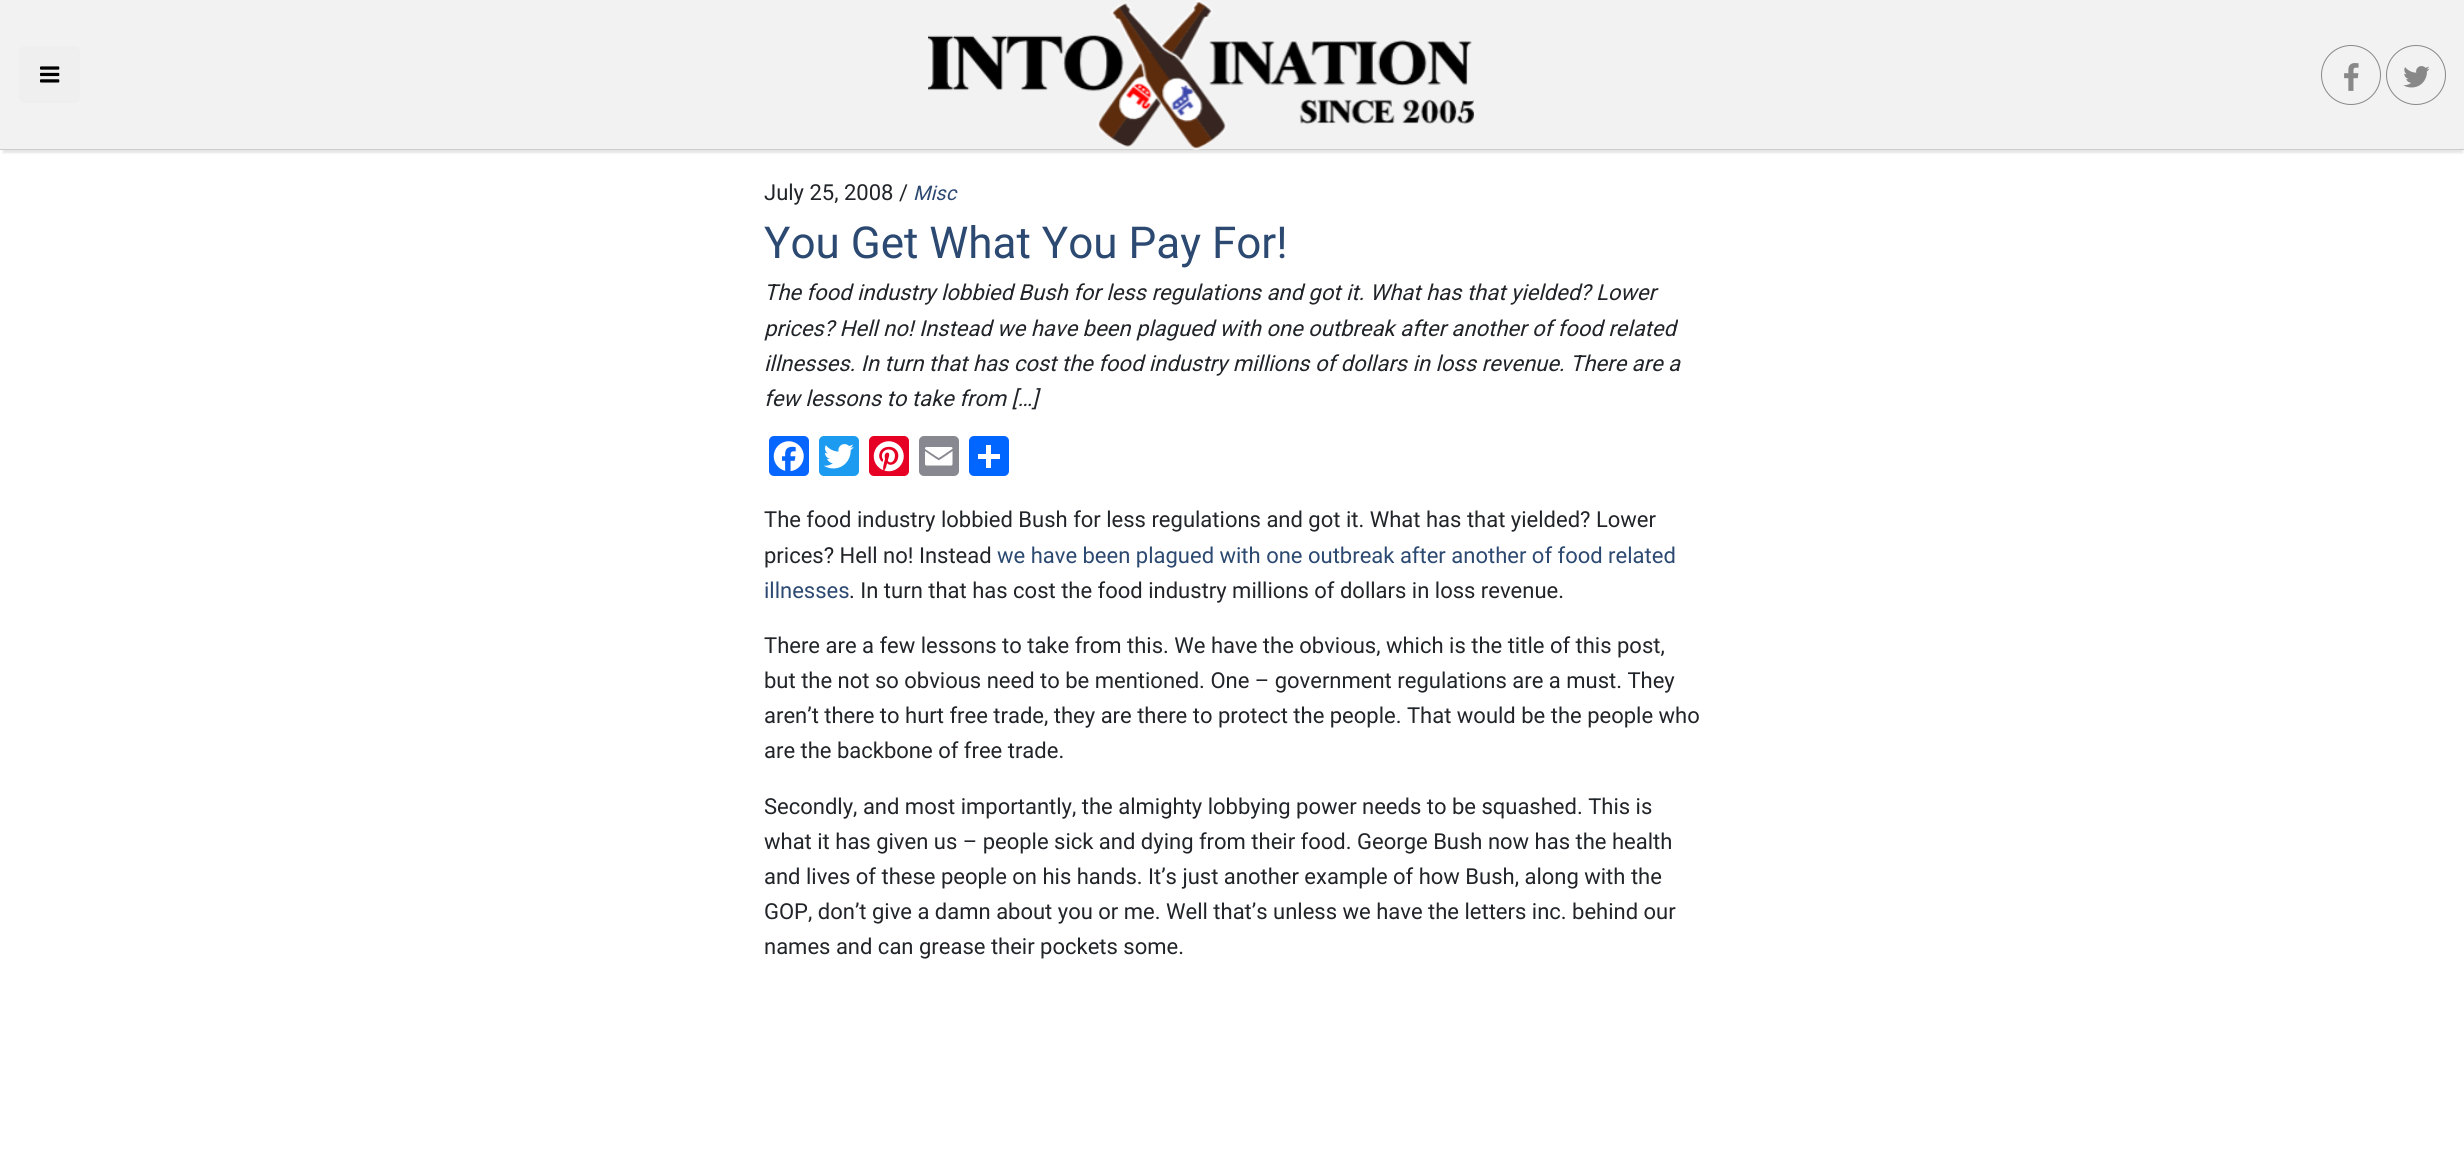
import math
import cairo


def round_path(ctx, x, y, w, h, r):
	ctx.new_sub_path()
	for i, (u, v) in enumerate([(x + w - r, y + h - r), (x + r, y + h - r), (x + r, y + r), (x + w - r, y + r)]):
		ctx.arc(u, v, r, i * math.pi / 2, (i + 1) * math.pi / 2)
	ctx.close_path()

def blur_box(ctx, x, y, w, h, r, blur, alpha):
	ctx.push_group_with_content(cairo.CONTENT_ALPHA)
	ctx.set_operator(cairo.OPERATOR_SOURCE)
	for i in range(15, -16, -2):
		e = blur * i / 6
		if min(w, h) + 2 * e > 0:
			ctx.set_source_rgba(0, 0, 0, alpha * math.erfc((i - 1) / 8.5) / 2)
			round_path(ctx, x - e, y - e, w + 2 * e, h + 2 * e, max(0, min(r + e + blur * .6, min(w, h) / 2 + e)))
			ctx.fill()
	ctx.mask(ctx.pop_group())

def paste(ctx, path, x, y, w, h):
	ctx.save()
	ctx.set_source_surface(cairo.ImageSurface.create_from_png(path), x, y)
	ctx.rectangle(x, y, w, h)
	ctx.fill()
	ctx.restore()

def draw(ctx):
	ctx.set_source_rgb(1, 1, 1)
	ctx.paint()
	ctx.set_source_rgb(0, 0, 0)
	blur_box(ctx, 3, 8, 2460, 145, 0, 1, 0.1)
	ctx.set_source_rgb(0.949, 0.949, 0.949)
	ctx.rectangle(0, 0, 2464, 149)
	ctx.fill()
	ctx.set_source_rgb(0.8, 0.8, 0.8)
	ctx.rectangle(0, 149, 2464, 1)
	ctx.fill()
	ctx.set_source_rgb(0.937, 0.937, 0.937)
	round_path(ctx, 19, 46, 61, 57, 6)
	ctx.fill()
	paste(ctx, 'media/1.png', 40, 66, 20, 17)
	paste(ctx, 'media/2.png', 928, 0, 546, 150)
	ctx.arc(2351, 75, 29.5, 0, 2 * math.pi)
	ctx.set_source_rgb(0.533, 0.533, 0.533)
	ctx.set_line_width(1)
	ctx.stroke()
	paste(ctx, 'media/3.png', 2344, 63, 15, 28)
	ctx.arc(2416, 75, 29.5, 0, 2 * math.pi)
	ctx.stroke()
	paste(ctx, 'media/4.png', 2403, 66, 27, 22)
	ctx.select_font_face('Roboto')
	ctx.set_font_size(22)
	ctx.set_source_rgb(0.129, 0.145, 0.161)
	ctx.move_to(764, 200)
	ctx.show_text('July 25, 2008 /')
	ctx.select_font_face('Roboto', cairo.FONT_SLANT_ITALIC)
	ctx.set_font_size(20)
	ctx.set_source_rgb(0.173, 0.286, 0.443)
	ctx.move_to(913, 200)
	ctx.show_text('Misc')
	ctx.select_font_face('Roboto')
	ctx.set_font_size(44)
	ctx.move_to(764, 258)
	ctx.show_text('You Get What You Pay For!')
	ctx.select_font_face('Roboto', cairo.FONT_SLANT_ITALIC)
	ctx.set_font_size(22)
	ctx.set_source_rgb(0.129, 0.145, 0.161)
	for x, y, s in [
		(764, 300, 'The food industry lobbied Bush for less regulations and got it. What has that yielded? Lower'),
		(764, 336, 'prices? Hell no! Instead we have been plagued with one outbreak after another of food related'),
		(764, 371, 'illnesses. In turn that has cost the food industry millions of dollars in loss revenue. There are a'),
		(764, 406, 'few lessons to take from […]'),
	]:
		ctx.move_to(x, y)
		ctx.show_text(s)
	ctx.set_source_rgb(0.031, 0.4, 1)
	round_path(ctx, 769, 436, 40, 40, 5)
	ctx.fill()
	paste(ctx, 'media/5.png', 773, 441, 31, 31)
	ctx.set_source_rgb(0.114, 0.608, 0.941)
	round_path(ctx, 819, 436, 40, 40, 5)
	ctx.fill()
	paste(ctx, 'media/6.png', 824, 444, 30, 25)
	ctx.set_source_rgb(0.902, 0, 0.137)
	round_path(ctx, 869, 436, 40, 40, 5)
	ctx.fill()
	paste(ctx, 'media/7.png', 873, 441, 31, 31)
	ctx.set_source_rgb(0.533, 0.537, 0.565)
	round_path(ctx, 919, 436, 40, 40, 5)
	ctx.fill()
	paste(ctx, 'media/8.png', 925, 447, 28, 19)
	ctx.set_source_rgb(0.004, 0.4, 1)
	round_path(ctx, 969, 436, 40, 40, 5)
	ctx.fill()
	ctx.set_source_rgb(1, 1, 1)
	ctx.rectangle(986, 445, 5, 23)
	ctx.fill()
	ctx.rectangle(978, 454, 22, 5)
	ctx.fill()
	ctx.select_font_face('Roboto')
	ctx.set_source_rgb(0.129, 0.145, 0.161)
	ctx.move_to(764, 527)
	ctx.show_text('The food industry lobbied Bush for less regulations and got it. What has that yielded? Lower')
	ctx.move_to(764, 563)
	ctx.show_text('prices? Hell no! Instead')
	ctx.set_source_rgb(0.173, 0.286, 0.443)
	ctx.move_to(997, 563)
	ctx.show_text('we have been plagued with one outbreak after another of food related')
	ctx.move_to(764, 598)
	ctx.show_text('illnesses')
	ctx.set_source_rgb(0.129, 0.145, 0.161)
	for x, y, s in [
		(849, 598, '. In turn that has cost the food industry millions of dollars in loss revenue.'),
		(764, 653, 'There are a few lessons to take from this. We have the obvious, which is the title of this post,'),
		(764, 688, 'but the not so obvious need to be mentioned. One – government regulations are a must. They'),
		(764, 723, 'aren’t there to hurt free trade, they are there to protect the people. That would be the people who'),
		(764, 758, 'are the backbone of free trade.'),
		(764, 814, 'Secondly, and most importantly, the almighty lobbying power needs to be squashed. This is'),
		(764, 849, 'what it has given us – people sick and dying from their food. George Bush now has the health'),
		(764, 884, 'and lives of these people on his hands. It’s just another example of how Bush, along with the'),
		(764, 919, 'GOP, don’t give a damn about you or me. Well that’s unless we have the letters inc. behind our'),
		(764, 954, 'names and can grease their pockets some.'),
	]:
		ctx.move_to(x, y)
		ctx.show_text(s)


surface = cairo.ImageSurface(cairo.FORMAT_RGB24, 2464, 1170)
ctx = cairo.Context(surface)
options = cairo.FontOptions()
options.set_hint_metrics(cairo.HINT_METRICS_OFF)
options.set_hint_style(cairo.HINT_STYLE_NONE)
ctx.set_font_options(options)
ctx.set_miter_limit(4)
draw(ctx)
surface.write_to_png('image.png')
